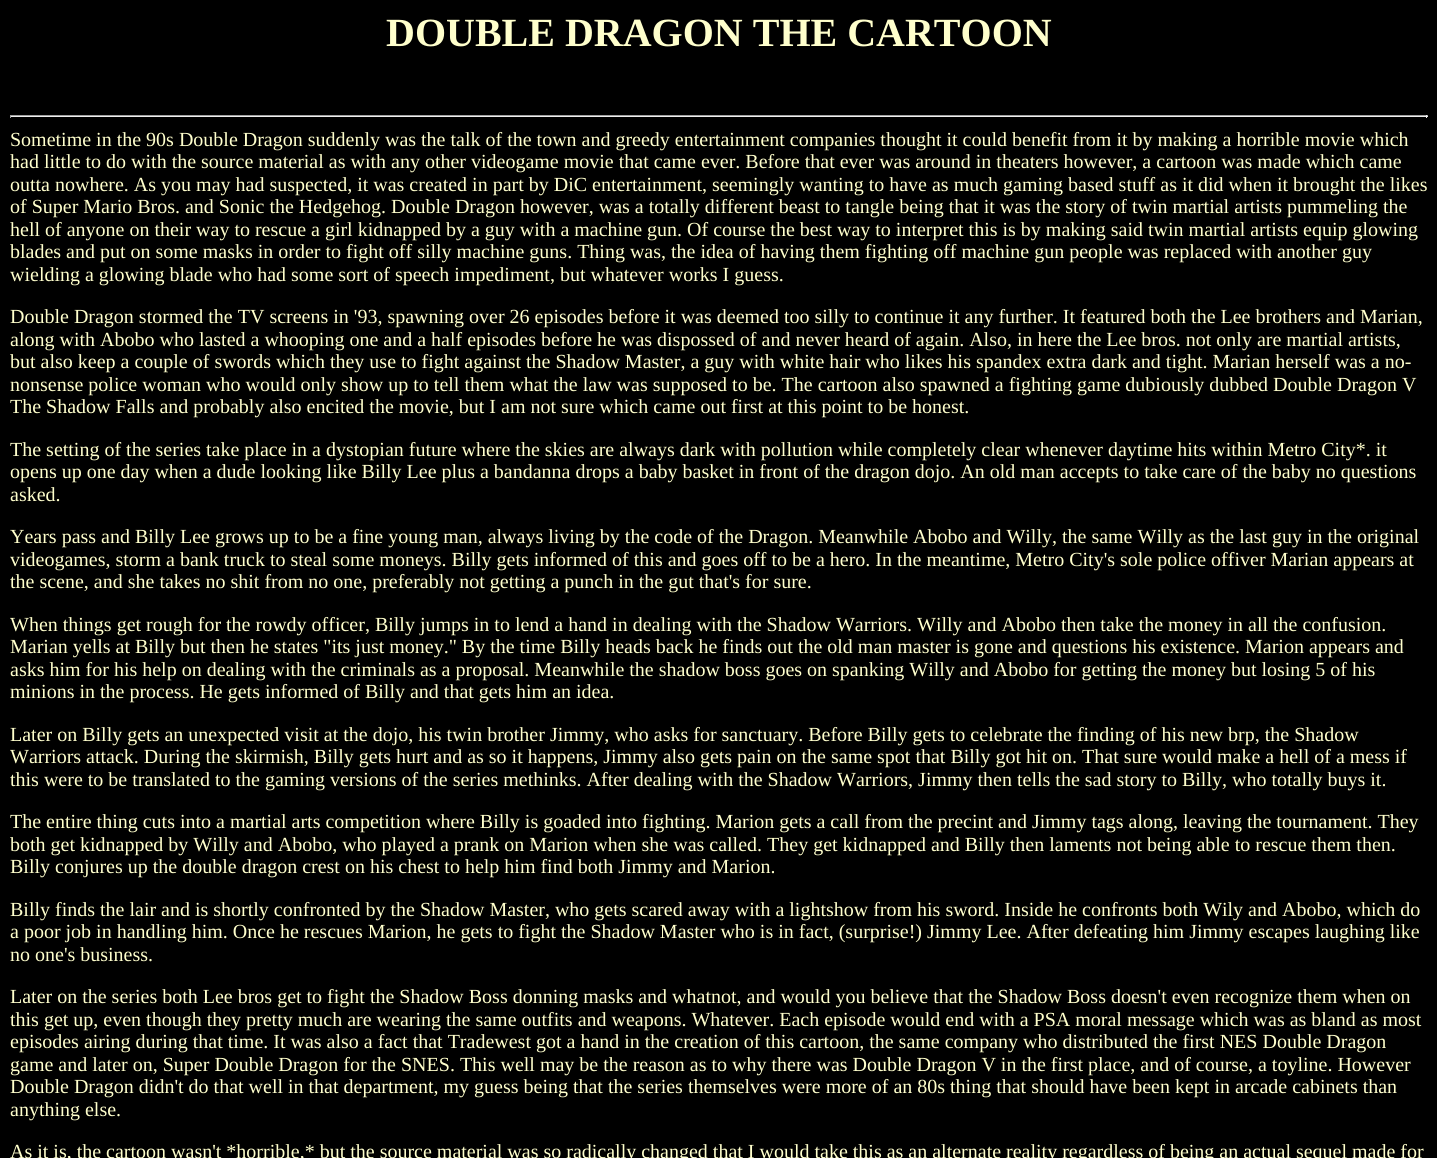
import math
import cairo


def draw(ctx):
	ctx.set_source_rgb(0, 0, 0)
	ctx.paint()
	ctx.select_font_face('Liberation Serif', cairo.FONT_SLANT_NORMAL, cairo.FONT_WEIGHT_BOLD)
	ctx.set_font_size(40)
	ctx.set_source_rgb(1, 1, 0.8)
	ctx.move_to(386, 46)
	ctx.show_text('DOUBLE DRAGON THE CARTOON')
	ctx.set_source_rgb(0.624, 0.624, 0.624)
	ctx.rectangle(10, 115, 1418, 1)
	ctx.fill()
	ctx.set_source_rgb(0.933, 0.933, 0.933)
	ctx.rectangle(1426, 115, 1, 3)
	ctx.rectangle(10, 116, 1418, 1)
	ctx.fill()
	ctx.set_source_rgb(0.624, 0.624, 0.624)
	ctx.rectangle(10, 115, 1, 3)
	ctx.fill()
	ctx.select_font_face('Liberation Serif')
	ctx.set_font_size(20)
	ctx.set_source_rgb(1, 1, 0.8)
	for x, y, s in [
		(10, 146, 'Sometime in the 90s Double Dragon suddenly was the talk of the town and greedy entertainment companies thought it could benefit from it by making a horrible movie which'),
		(10, 168, 'had little to do with the source material as with any other videogame movie that came ever. Before that ever was around in theaters however, a cartoon was made which came'),
		(10, 191, 'outta nowhere. As you may had suspected, it was created in part by DiC entertainment, seemingly wanting to have as much gaming based stuff as it did when it brought the likes'),
		(10, 213, 'of Super Mario Bros. and Sonic the Hedgehog. Double Dragon however, was a totally different beast to tangle being that it was the story of twin martial artists pummeling the'),
		(10, 236, 'hell of anyone on their way to rescue a girl kidnapped by a guy with a machine gun. Of course the best way to interpret this is by making said twin martial artists equip glowing'),
		(10, 258, 'blades and put on some masks in order to fight off silly machine guns. Thing was, the idea of having them fighting off machine gun people was replaced with another guy'),
		(10, 281, 'wielding a glowing blade who had some sort of speech impediment, but whatever works I guess.'),
		(10, 323, 'Double Dragon stormed the TV screens in \'93, spawning over 26 episodes before it was deemed too silly to continue it any further. It featured both the Lee brothers and Marian,'),
		(10, 346, 'along with Abobo who lasted a whooping one and a half episodes before he was dispossed of and never heard of again. Also, in here the Lee bros. not only are martial artists,'),
		(10, 368, 'but also keep a couple of swords which they use to fight against the Shadow Master, a guy with white hair who likes his spandex extra dark and tight. Marian herself was a no-'),
		(10, 391, 'nonsense police woman who would only show up to tell them what the law was supposed to be. The cartoon also spawned a fighting game dubiously dubbed Double Dragon V'),
		(10, 413, 'The Shadow Falls and probably also encited the movie, but I am not sure which came out first at this point to be honest.'),
		(10, 456, 'The setting of the series take place in a dystopian future where the skies are always dark with pollution while completely clear whenever daytime hits within Metro City*. it'),
		(10, 478, 'opens up one day when a dude looking like Billy Lee plus a bandanna drops a baby basket in front of the dragon dojo. An old man accepts to take care of the baby no questions'),
		(10, 501, 'asked.'),
		(10, 543, 'Years pass and Billy Lee grows up to be a fine young man, always living by the code of the Dragon. Meanwhile Abobo and Willy, the same Willy as the last guy in the original'),
		(10, 566, 'videogames, storm a bank truck to steal some moneys. Billy gets informed of this and goes off to be a hero. In the meantime, Metro City\'s sole police offiver Marian appears at'),
		(10, 588, 'the scene, and she takes no shit from no one, preferably not getting a punch in the gut that\'s for sure.'),
		(10, 631, 'When things get rough for the rowdy officer, Billy jumps in to lend a hand in dealing with the Shadow Warriors. Willy and Abobo then take the money in all the confusion.'),
		(10, 653, 'Marian yells at Billy but then he states "its just money." By the time Billy heads back he finds out the old man master is gone and questions his existence. Marion appears and'),
		(10, 676, 'asks him for his help on dealing with the criminals as a proposal. Meanwhile the shadow boss goes on spanking Willy and Abobo for getting the money but losing 5 of his'),
		(10, 698, 'minions in the process. He gets informed of Billy and that gets him an idea.'),
		(10, 741, 'Later on Billy gets an unexpected visit at the dojo, his twin brother Jimmy, who asks for sanctuary. Before Billy gets to celebrate the finding of his new brp, the Shadow'),
		(10, 763, 'Warriors attack. During the skirmish, Billy gets hurt and as so it happens, Jimmy also gets pain on the same spot that Billy got hit on. That sure would make a hell of a mess if'),
		(10, 786, 'this were to be translated to the gaming versions of the series methinks. After dealing with the Shadow Warriors, Jimmy then tells the sad story to Billy, who totally buys it.'),
		(10, 828, 'The entire thing cuts into a martial arts competition where Billy is goaded into fighting. Marion gets a call from the precint and Jimmy tags along, leaving the tournament. They'),
		(10, 851, 'both get kidnapped by Willy and Abobo, who played a prank on Marion when she was called. They get kidnapped and Billy then laments not being able to rescue them then.'),
		(10, 873, 'Billy conjures up the double dragon crest on his chest to help him find both Jimmy and Marion.'),
		(10, 916, 'Billy finds the lair and is shortly confronted by the Shadow Master, who gets scared away with a lightshow from his sword. Inside he confronts both Wily and Abobo, which do'),
		(10, 938, 'a poor job in handling him. Once he rescues Marion, he gets to fight the Shadow Master who is in fact, (surprise!) Jimmy Lee. After defeating him Jimmy escapes laughing like'),
		(10, 961, 'no one\'s business.'),
		(10, 1003, 'Later on the series both Lee bros get to fight the Shadow Boss donning masks and whatnot, and would you believe that the Shadow Boss doesn\'t even recognize them when on'),
		(10, 1026, 'this get up, even though they pretty much are wearing the same outfits and weapons. Whatever. Each episode would end with a PSA moral message which was as bland as most'),
		(10, 1048, 'episodes airing during that time. It was also a fact that Tradewest got a hand in the creation of this cartoon, the same company who distributed the first NES Double Dragon'),
		(10, 1071, 'game and later on, Super Double Dragon for the SNES. This well may be the reason as to why there was Double Dragon V in the first place, and of course, a toyline. However'),
		(10, 1093, 'Double Dragon didn\'t do that well in that department, my guess being that the series themselves were more of an 80s thing that should have been kept in arcade cabinets than'),
		(10, 1116, 'anything else.'),
		(10, 1158, 'As it is, the cartoon wasn\'t *horrible,* but the source material was so radically changed that I would take this as an alternate reality regardless of being an actual sequel made for'),
	]:
		ctx.move_to(x, y)
		ctx.show_text(s)


surface = cairo.ImageSurface(cairo.FORMAT_RGB24, 1437, 1158)
ctx = cairo.Context(surface)
options = cairo.FontOptions()
options.set_hint_metrics(cairo.HINT_METRICS_OFF)
options.set_hint_style(cairo.HINT_STYLE_NONE)
ctx.set_font_options(options)
ctx.set_miter_limit(4)
draw(ctx)
surface.write_to_png('image.png')
